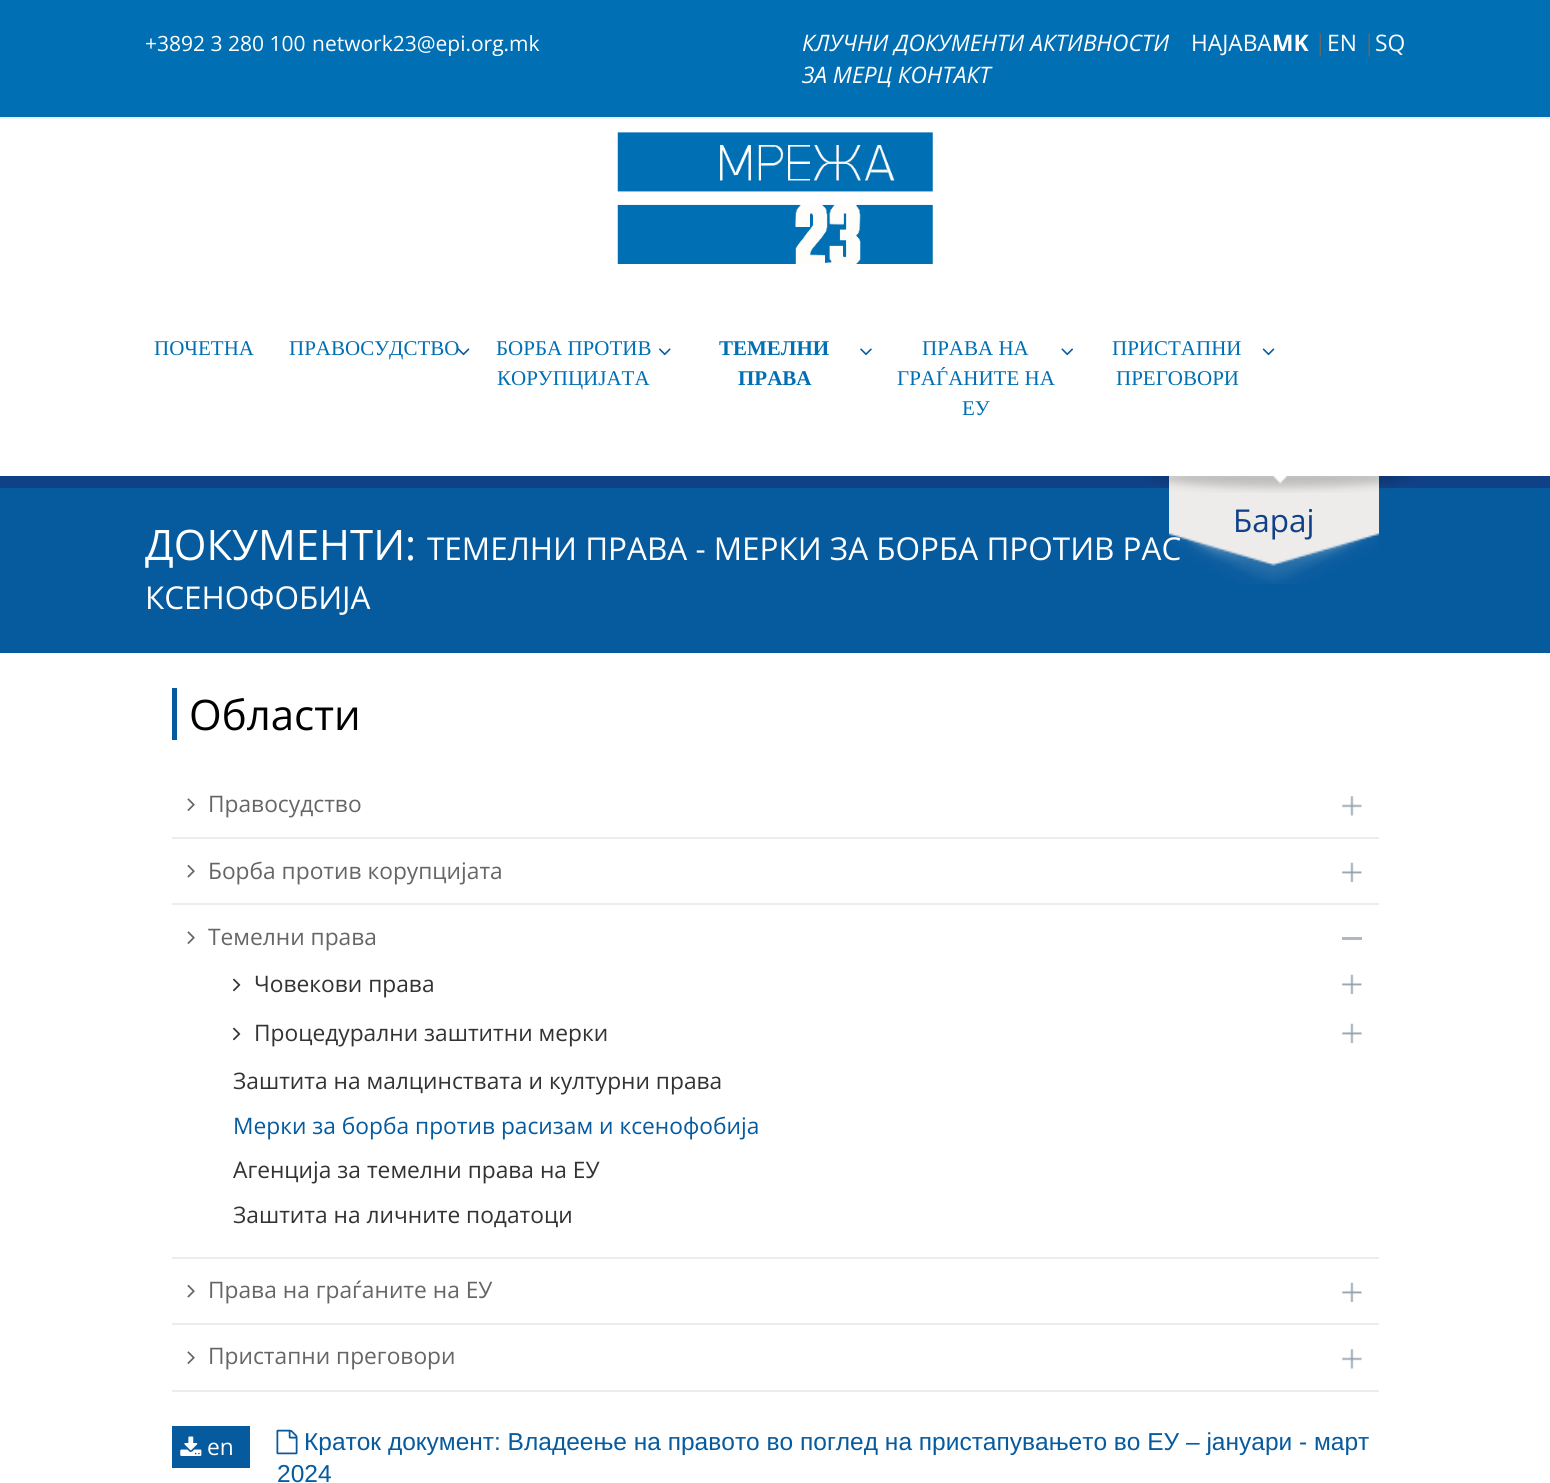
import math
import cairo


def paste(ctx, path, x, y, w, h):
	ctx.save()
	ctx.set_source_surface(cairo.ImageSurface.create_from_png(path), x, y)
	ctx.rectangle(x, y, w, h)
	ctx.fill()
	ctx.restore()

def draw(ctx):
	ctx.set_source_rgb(1, 1, 1)
	ctx.paint()
	ctx.set_source_rgb(0, 0.435, 0.706)
	ctx.rectangle(0, 0, 1550, 117)
	ctx.fill()
	ctx.set_source_rgb(0.918, 0.953, 0.976)
	ctx.rectangle(0, 117, 1550, 2)
	ctx.fill()
	ctx.select_font_face('Open Sans')
	ctx.set_font_size(21)
	ctx.set_source_rgb(1, 1, 1)
	ctx.move_to(145, 51)
	ctx.show_text('+3892 3 280 100')
	ctx.move_to(312, 51)
	ctx.show_text('network23@epi.org.mk')
	ctx.select_font_face('Open Sans', cairo.FONT_SLANT_ITALIC)
	ctx.set_font_size(22.75)
	ctx.move_to(802, 51)
	ctx.show_text('КЛУЧНИ ДОКУМЕНТИ АКТИВНОСТИ')
	ctx.move_to(802, 83)
	ctx.show_text('ЗА МЕРЦ КОНТАКТ')
	ctx.select_font_face('Open Sans')
	ctx.move_to(1191, 51)
	ctx.show_text('НАЈАВА')
	ctx.select_font_face('Open Sans', cairo.FONT_SLANT_NORMAL, cairo.FONT_WEIGHT_BOLD)
	ctx.move_to(1272, 51)
	ctx.show_text('MK')
	ctx.select_font_face('Open Sans')
	ctx.set_source_rgb(0.4, 0.4, 0.4)
	ctx.move_to(1314, 51)
	ctx.show_text('|')
	ctx.set_source_rgb(1, 1, 1)
	ctx.move_to(1327, 51)
	ctx.show_text('EN')
	ctx.set_source_rgb(0.4, 0.4, 0.4)
	ctx.move_to(1363, 51)
	ctx.show_text('|')
	ctx.set_source_rgb(1, 1, 1)
	ctx.move_to(1375, 51)
	ctx.show_text('SQ')
	paste(ctx, 'media/1.png', 617, 132, 316, 132)
	ctx.select_font_face('Liberation Serif')
	ctx.set_font_size(21)
	ctx.set_source_rgb(0, 0.435, 0.706)
	ctx.move_to(154, 355)
	ctx.show_text('ПОЧЕТНА')
	ctx.move_to(289, 355)
	ctx.show_text('ПРАВОСУДСТВО')
	paste(ctx, 'media/2.png', 457, 348, 13, 8)
	ctx.move_to(496, 355)
	ctx.show_text('БОРБА ПРОТИВ')
	ctx.move_to(497, 385)
	ctx.show_text('КОРУПЦИЈАТА')
	paste(ctx, 'media/3.png', 658, 348, 13, 8)
	ctx.select_font_face('Liberation Serif', cairo.FONT_SLANT_NORMAL, cairo.FONT_WEIGHT_BOLD)
	ctx.move_to(719, 355)
	ctx.show_text('ТЕМЕЛНИ')
	ctx.move_to(738, 385)
	ctx.show_text('ПРАВА')
	paste(ctx, 'media/4.png', 860, 348, 12, 8)
	ctx.select_font_face('Liberation Serif')
	for x, y, s in [
		(922, 355, 'ПРАВА НА'),
		(897, 385, 'ГРАЃАНИТЕ НА'),
		(962, 415, 'ЕУ'),
	]:
		ctx.move_to(x, y)
		ctx.show_text(s)
	paste(ctx, 'media/5.png', 1061, 348, 13, 8)
	ctx.move_to(1112, 355)
	ctx.show_text('ПРИСТАПНИ')
	ctx.move_to(1116, 385)
	ctx.show_text('ПРЕГОВОРИ')
	paste(ctx, 'media/6.png', 1262, 348, 13, 8)
	ctx.set_source_rgb(0.027, 0.353, 0.62)
	ctx.rectangle(0, 488, 1550, 165)
	ctx.fill()
	ctx.set_source_rgb(0.063, 0.255, 0.529)
	ctx.rectangle(0, 476, 1550, 12)
	ctx.fill()
	ctx.select_font_face('Open Sans')
	ctx.set_font_size(31.5)
	ctx.set_source_rgb(1, 1, 1)
	ctx.move_to(427, 560)
	ctx.show_text('ТЕМЕЛНИ ПРАВА - МЕРКИ ЗА БОРБА ПРОТИВ РАС')
	paste(ctx, 'media/8.png', 1169, 476, 210, 108)
	paste(ctx, 'media/7.png', 1145, 476, 270, 17)
	ctx.set_source_rgb(0.063, 0.255, 0.529)
	ctx.move_to(1233, 532)
	ctx.show_text('Барај')
	ctx.set_font_size(42)
	ctx.set_source_rgb(1, 1, 1)
	ctx.move_to(145, 560)
	ctx.show_text('ДОКУМЕНТИ:')
	ctx.set_font_size(31.5)
	ctx.move_to(145, 609)
	ctx.show_text('КСЕНОФОБИЈА')
	ctx.set_source_rgb(0.027, 0.353, 0.62)
	ctx.rectangle(172, 688, 5, 52)
	ctx.fill()
	ctx.set_font_size(42)
	ctx.set_source_rgb(0, 0, 0)
	ctx.move_to(189, 730)
	ctx.show_text('Области')
	ctx.set_source_rgb(0.925, 0.922, 0.922)
	ctx.rectangle(172, 837, 1207, 2)
	ctx.fill()
	paste(ctx, 'media/9.png', 187, 798, 8, 13)
	ctx.set_font_size(22.75)
	ctx.set_source_rgb(0.4, 0.4, 0.4)
	ctx.move_to(208, 812)
	ctx.show_text('Правосудство')
	paste(ctx, 'media/10.png', 1342, 796, 20, 20)
	ctx.set_source_rgb(0.925, 0.922, 0.922)
	ctx.rectangle(172, 903, 1207, 2)
	ctx.fill()
	paste(ctx, 'media/11.png', 187, 864, 8, 14)
	ctx.set_source_rgb(0.4, 0.4, 0.4)
	ctx.move_to(208, 879)
	ctx.show_text('Борба против корупцијата')
	paste(ctx, 'media/12.png', 1342, 862, 20, 20)
	ctx.set_source_rgb(0.925, 0.922, 0.922)
	ctx.rectangle(172, 1257, 1207, 2)
	ctx.fill()
	paste(ctx, 'media/9.png', 187, 931, 8, 13)
	ctx.set_source_rgb(0.4, 0.4, 0.4)
	ctx.move_to(208, 945)
	ctx.show_text('Темелни права')
	ctx.set_source_rgb(0.686, 0.722, 0.757)
	ctx.rectangle(1342, 937, 20, 3)
	ctx.fill()
	paste(ctx, 'media/13.png', 233, 978, 8, 14)
	ctx.set_source_rgb(0.2, 0.2, 0.2)
	ctx.move_to(254, 992)
	ctx.show_text('Човекови права')
	paste(ctx, 'media/12.png', 1342, 974, 20, 20)
	paste(ctx, 'media/13.png', 233, 1027, 8, 14)
	ctx.move_to(254, 1041)
	ctx.show_text('Процедурални заштитни мерки')
	paste(ctx, 'media/12.png', 1342, 1023, 20, 20)
	ctx.move_to(233, 1089)
	ctx.show_text('Заштита на малцинствата и културни права')
	ctx.set_source_rgb(0.027, 0.353, 0.62)
	ctx.move_to(233, 1134)
	ctx.show_text('Мерки за борба против расизам и ксенофобија')
	ctx.set_source_rgb(0.2, 0.2, 0.2)
	ctx.move_to(233, 1178)
	ctx.show_text('Агенција за темелни права на ЕУ')
	ctx.move_to(233, 1223)
	ctx.show_text('Заштита на личните податоци')
	ctx.set_source_rgb(0.925, 0.922, 0.922)
	ctx.rectangle(172, 1323, 1207, 2)
	ctx.fill()
	paste(ctx, 'media/11.png', 187, 1284, 8, 14)
	ctx.set_source_rgb(0.4, 0.4, 0.4)
	ctx.move_to(208, 1298)
	ctx.show_text('Права на граѓаните на ЕУ')
	paste(ctx, 'media/12.png', 1342, 1282, 20, 20)
	ctx.set_source_rgb(0.925, 0.922, 0.922)
	ctx.rectangle(172, 1390, 1207, 2)
	ctx.fill()
	paste(ctx, 'media/9.png', 187, 1351, 8, 13)
	ctx.set_source_rgb(0.4, 0.4, 0.4)
	ctx.move_to(208, 1364)
	ctx.show_text('Пристапни преговори')
	paste(ctx, 'media/10.png', 1342, 1349, 20, 20)
	ctx.set_source_rgb(0.027, 0.353, 0.62)
	ctx.rectangle(172, 1426, 78, 42)
	ctx.fill()
	paste(ctx, 'media/14.png', 180, 1436, 22, 20)
	ctx.set_source_rgb(1, 1, 1)
	ctx.move_to(207, 1455)
	ctx.show_text('en')
	paste(ctx, 'media/15.png', 276, 1429, 22, 26)
	ctx.select_font_face('Liberation Sans')
	ctx.set_font_size(24.5)
	ctx.set_source_rgb(0.027, 0.353, 0.62)
	ctx.move_to(304, 1450)
	ctx.show_text('Краток документ: Владеење на правото во поглед на пристапувањето во ЕУ – јануари - март')
	ctx.move_to(277, 1482)
	ctx.show_text('2024')


surface = cairo.ImageSurface(cairo.FORMAT_RGB24, 1550, 1483)
ctx = cairo.Context(surface)
options = cairo.FontOptions()
options.set_hint_metrics(cairo.HINT_METRICS_OFF)
options.set_hint_style(cairo.HINT_STYLE_NONE)
ctx.set_font_options(options)
ctx.set_miter_limit(4)
draw(ctx)
surface.write_to_png('image.png')
